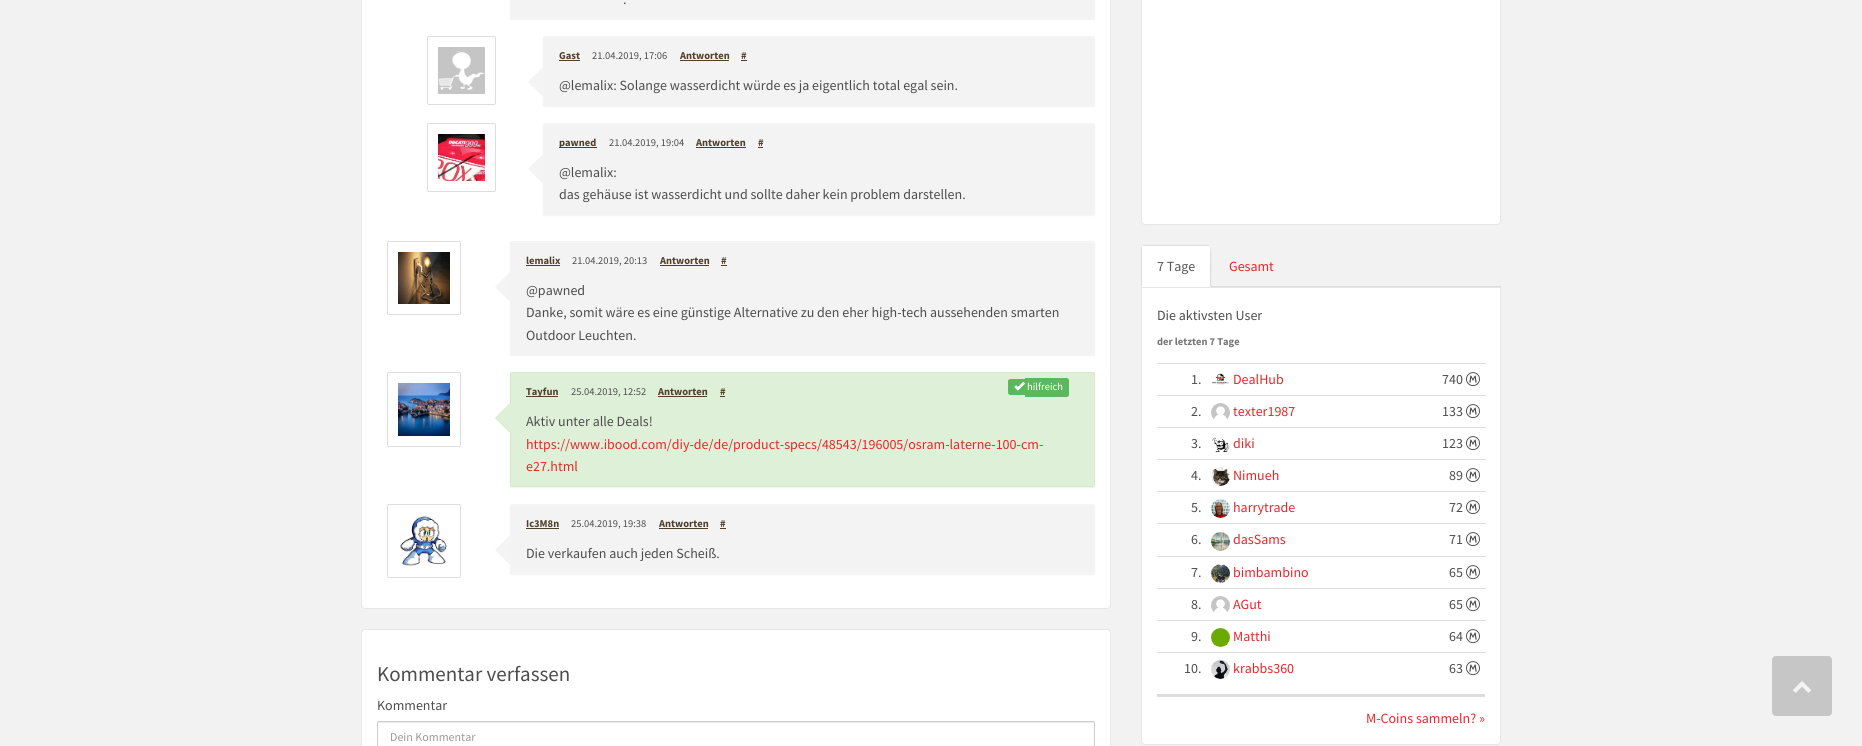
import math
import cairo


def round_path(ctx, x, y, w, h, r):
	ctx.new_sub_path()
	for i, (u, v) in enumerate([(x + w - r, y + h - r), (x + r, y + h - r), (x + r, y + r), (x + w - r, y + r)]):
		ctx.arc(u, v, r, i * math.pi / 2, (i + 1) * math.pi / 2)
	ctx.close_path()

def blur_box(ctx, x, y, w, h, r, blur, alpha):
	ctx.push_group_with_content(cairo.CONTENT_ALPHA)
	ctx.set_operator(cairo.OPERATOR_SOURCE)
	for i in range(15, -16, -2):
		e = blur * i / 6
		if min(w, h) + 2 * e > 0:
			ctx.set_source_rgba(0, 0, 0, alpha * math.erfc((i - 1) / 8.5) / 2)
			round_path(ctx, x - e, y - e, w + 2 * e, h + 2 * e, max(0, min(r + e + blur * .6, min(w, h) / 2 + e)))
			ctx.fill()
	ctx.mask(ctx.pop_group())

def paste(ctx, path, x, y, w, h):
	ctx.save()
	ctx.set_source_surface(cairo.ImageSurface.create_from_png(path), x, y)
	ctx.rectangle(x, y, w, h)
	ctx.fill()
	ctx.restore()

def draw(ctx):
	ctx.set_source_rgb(0.949, 0.949, 0.949)
	ctx.paint()
	ctx.set_source_rgb(1, 1, 1)
	round_path(ctx, 361.5, -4.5, 749, 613, 3.5)
	ctx.fill_preserve()
	ctx.set_source_rgb(0.902, 0.902, 0.902)
	ctx.set_line_width(1)
	ctx.stroke()
	ctx.set_source_rgb(0, 0, 0)
	blur_box(ctx, 510, -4, 585, 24, 2, 0.5, 0.05)
	ctx.select_font_face('Source Sans Pro')
	ctx.set_font_size(14)
	ctx.set_source_rgb(0.302, 0.302, 0.302)
	ctx.move_to(623, 4)
	ctx.show_text('.')
	round_path(ctx, 427.5, 36.5, 68, 68, 1.5)
	ctx.set_source_rgb(0.867, 0.867, 0.867)
	ctx.stroke()
	paste(ctx, 'media/1.png', 438, 47, 47, 47)
	ctx.set_source_rgb(0, 0, 0)
	blur_box(ctx, 543, 37, 552, 70, 2, 0.5, 0.05)
	round_path(ctx, 543.5, 36.5, 551, 69, 1.5)
	ctx.set_source_rgb(0.957, 0.957, 0.957)
	ctx.stroke()
	ctx.new_path()
	ctx.move_to(544, 66)
	ctx.line_to(544, 98)
	ctx.line_to(528, 82)
	ctx.close_path()
	ctx.fill()
	ctx.select_font_face('Source Sans Pro', cairo.FONT_SLANT_NORMAL, cairo.FONT_WEIGHT_BOLD)
	ctx.set_font_size(10.5)
	ctx.set_source_rgb(0.314, 0.251, 0.165)
	ctx.move_to(559, 59)
	ctx.show_text('Gast')
	ctx.rectangle(559, 60, 21, 1)
	ctx.fill()
	ctx.select_font_face('Source Sans Pro')
	ctx.set_source_rgb(0.302, 0.302, 0.302)
	ctx.move_to(592, 59)
	ctx.show_text('21.04.2019, 17:06')
	ctx.select_font_face('Source Sans Pro', cairo.FONT_SLANT_NORMAL, cairo.FONT_WEIGHT_BOLD)
	ctx.set_source_rgb(0.314, 0.251, 0.165)
	ctx.move_to(680, 59)
	ctx.show_text('Antworten')
	ctx.rectangle(680, 60, 49, 1)
	ctx.fill()
	ctx.move_to(741, 59)
	ctx.show_text('#')
	ctx.rectangle(741, 60, 6, 1)
	ctx.fill()
	ctx.select_font_face('Source Sans Pro')
	ctx.set_font_size(14)
	ctx.set_source_rgb(0.302, 0.302, 0.302)
	ctx.move_to(559, 90)
	ctx.show_text('@lemalix: Solange wasserdicht würde es ja eigentlich total egal sein.')
	round_path(ctx, 427.5, 123.5, 68, 68, 1.5)
	ctx.set_source_rgb(0.867, 0.867, 0.867)
	ctx.stroke()
	paste(ctx, 'media/2.png', 438, 134, 47, 47)
	ctx.set_source_rgb(0, 0, 0)
	blur_box(ctx, 543, 124, 552, 92, 2, 0.5, 0.05)
	round_path(ctx, 543.5, 123.5, 551, 91, 1.5)
	ctx.set_source_rgb(0.957, 0.957, 0.957)
	ctx.stroke()
	ctx.new_path()
	ctx.move_to(544, 153)
	ctx.line_to(544, 185)
	ctx.line_to(528, 169)
	ctx.close_path()
	ctx.fill()
	ctx.set_source_rgb(0.314, 0.251, 0.165)
	ctx.rectangle(559, 147, 38, 1)
	ctx.fill()
	ctx.select_font_face('Source Sans Pro', cairo.FONT_SLANT_NORMAL, cairo.FONT_WEIGHT_BOLD)
	ctx.set_font_size(10.5)
	ctx.move_to(559, 146)
	ctx.show_text('pawned')
	ctx.select_font_face('Source Sans Pro')
	ctx.set_source_rgb(0.302, 0.302, 0.302)
	ctx.move_to(609, 146)
	ctx.show_text('21.04.2019, 19:04')
	ctx.select_font_face('Source Sans Pro', cairo.FONT_SLANT_NORMAL, cairo.FONT_WEIGHT_BOLD)
	ctx.set_source_rgb(0.314, 0.251, 0.165)
	ctx.move_to(696, 146)
	ctx.show_text('Antworten')
	ctx.rectangle(696, 147, 50, 1)
	ctx.fill()
	ctx.move_to(758, 146)
	ctx.show_text('#')
	ctx.rectangle(758, 147, 5, 1)
	ctx.fill()
	ctx.select_font_face('Source Sans Pro')
	ctx.set_font_size(14)
	ctx.set_source_rgb(0.302, 0.302, 0.302)
	ctx.move_to(559, 177)
	ctx.show_text('@lemalix:')
	ctx.move_to(559, 199)
	ctx.show_text('das gehäuse ist wasserdicht und sollte daher kein problem darstellen.')
	round_path(ctx, 387.5, 241.5, 73, 73, 1.5)
	ctx.set_source_rgb(0.867, 0.867, 0.867)
	ctx.stroke()
	paste(ctx, 'media/3.png', 398, 252, 52, 52)
	ctx.set_source_rgb(0, 0, 0)
	blur_box(ctx, 510, 242, 585, 114, 2, 0.5, 0.05)
	round_path(ctx, 510.5, 241.5, 584, 113, 1.5)
	ctx.set_source_rgb(0.957, 0.957, 0.957)
	ctx.stroke()
	ctx.new_path()
	ctx.move_to(511, 271)
	ctx.line_to(511, 303)
	ctx.line_to(495, 287)
	ctx.close_path()
	ctx.fill()
	ctx.select_font_face('Source Sans Pro', cairo.FONT_SLANT_NORMAL, cairo.FONT_WEIGHT_BOLD)
	ctx.set_font_size(10.5)
	ctx.set_source_rgb(0.314, 0.251, 0.165)
	ctx.move_to(526, 264)
	ctx.show_text('lemalix')
	ctx.rectangle(526, 265, 34, 1)
	ctx.fill()
	ctx.select_font_face('Source Sans Pro')
	ctx.set_source_rgb(0.302, 0.302, 0.302)
	ctx.move_to(572, 264)
	ctx.show_text('21.04.2019, 20:13')
	ctx.select_font_face('Source Sans Pro', cairo.FONT_SLANT_NORMAL, cairo.FONT_WEIGHT_BOLD)
	ctx.set_source_rgb(0.314, 0.251, 0.165)
	ctx.move_to(660, 264)
	ctx.show_text('Antworten')
	ctx.rectangle(660, 265, 49, 1)
	ctx.fill()
	ctx.move_to(721, 264)
	ctx.show_text('#')
	ctx.rectangle(721, 265, 6, 1)
	ctx.fill()
	ctx.select_font_face('Source Sans Pro')
	ctx.set_font_size(14)
	ctx.set_source_rgb(0.302, 0.302, 0.302)
	for x, y, s in [
		(526, 295, '@pawned'),
		(526, 317, 'Danke, somit wäre es eine günstige Alternative zu den eher high-tech aussehenden smarten'),
		(526, 340, 'Outdoor Leuchten.'),
	]:
		ctx.move_to(x, y)
		ctx.show_text(s)
	round_path(ctx, 387.5, 372.5, 73, 74, 1.5)
	ctx.set_source_rgb(0.867, 0.867, 0.867)
	ctx.stroke()
	paste(ctx, 'media/4.png', 398, 383, 52, 53)
	ctx.set_source_rgb(0, 0, 0)
	blur_box(ctx, 510, 373, 585, 115, 2, 0.5, 0.05)
	round_path(ctx, 510.5, 372.5, 584, 114, 1.5)
	ctx.set_source_rgb(0.839, 0.914, 0.776)
	ctx.stroke()
	ctx.new_path()
	ctx.move_to(511, 402)
	ctx.line_to(511, 434)
	ctx.line_to(495, 418)
	ctx.close_path()
	ctx.fill()
	ctx.set_source_rgb(0.875, 0.941, 0.847)
	ctx.rectangle(511, 373, 583, 113)
	ctx.fill()
	ctx.set_source_rgb(0.314, 0.251, 0.165)
	ctx.rectangle(526, 396, 32, 1)
	ctx.fill()
	ctx.select_font_face('Source Sans Pro', cairo.FONT_SLANT_NORMAL, cairo.FONT_WEIGHT_BOLD)
	ctx.set_font_size(10.5)
	ctx.move_to(526, 395)
	ctx.show_text('Tayfun')
	ctx.select_font_face('Source Sans Pro')
	ctx.set_source_rgb(0.302, 0.302, 0.302)
	ctx.move_to(571, 395)
	ctx.show_text('25.04.2019, 12:52')
	ctx.select_font_face('Source Sans Pro', cairo.FONT_SLANT_NORMAL, cairo.FONT_WEIGHT_BOLD)
	ctx.set_source_rgb(0.314, 0.251, 0.165)
	ctx.move_to(658, 395)
	ctx.show_text('Antworten')
	ctx.rectangle(658, 396, 49, 1)
	ctx.fill()
	ctx.move_to(720, 395)
	ctx.show_text('#')
	ctx.rectangle(720, 396, 5, 1)
	ctx.fill()
	ctx.set_source_rgb(0.361, 0.722, 0.361)
	ctx.new_path()
	ctx.move_to(1010.5, 379)
	ctx.line_to(1025, 379)
	ctx.line_to(1025, 395)
	ctx.line_to(1010.5, 395)
	ctx.curve_to(1009, 395, 1008, 394, 1008, 392.5)
	ctx.line_to(1008, 381.5)
	ctx.curve_to(1008, 380, 1009, 379, 1010.5, 379)
	ctx.close_path()
	ctx.fill()
	ctx.new_path()
	ctx.move_to(1025, 378)
	ctx.line_to(1066.5, 378)
	ctx.curve_to(1068, 378, 1069, 379, 1069, 380.5)
	ctx.line_to(1069, 394.5)
	ctx.curve_to(1069, 396, 1068, 397, 1066.5, 397)
	ctx.line_to(1025, 397)
	ctx.close_path()
	ctx.fill()
	paste(ctx, 'media/5.png', 1014, 381, 11, 10)
	ctx.select_font_face('Source Sans Pro')
	ctx.set_source_rgb(1, 1, 1)
	ctx.move_to(1027, 390)
	ctx.show_text('hilfreich')
	ctx.set_font_size(14)
	ctx.set_source_rgb(0.302, 0.302, 0.302)
	ctx.move_to(526, 426)
	ctx.show_text('Aktiv unter alle Deals!')
	ctx.set_source_rgb(0.894, 0.157, 0.157)
	ctx.move_to(526, 449)
	ctx.show_text('https://www.ibood.com/diy-de/de/product-specs/48543/196005/osram-laterne-100-cm-')
	ctx.move_to(526, 471)
	ctx.show_text('e27.html')
	ctx.set_source_rgb(0.875, 0.941, 0.847)
	ctx.new_path()
	ctx.move_to(511, 403)
	ctx.line_to(511, 433)
	ctx.line_to(496, 418)
	ctx.close_path()
	ctx.fill()
	round_path(ctx, 387.5, 504.5, 73, 73, 1.5)
	ctx.set_source_rgb(0.867, 0.867, 0.867)
	ctx.stroke()
	paste(ctx, 'media/6.png', 400, 515, 48, 51)
	ctx.set_source_rgb(0, 0, 0)
	blur_box(ctx, 510, 505, 585, 70, 2, 0.5, 0.05)
	round_path(ctx, 510.5, 504.5, 584, 69, 1.5)
	ctx.set_source_rgb(0.957, 0.957, 0.957)
	ctx.stroke()
	ctx.new_path()
	ctx.move_to(511, 534)
	ctx.line_to(511, 566)
	ctx.line_to(495, 550)
	ctx.close_path()
	ctx.fill()
	ctx.select_font_face('Source Sans Pro', cairo.FONT_SLANT_NORMAL, cairo.FONT_WEIGHT_BOLD)
	ctx.set_font_size(10.5)
	ctx.set_source_rgb(0.314, 0.251, 0.165)
	ctx.move_to(526, 527)
	ctx.show_text('Ic3M8n')
	ctx.rectangle(526, 528, 33, 1)
	ctx.fill()
	ctx.select_font_face('Source Sans Pro')
	ctx.set_source_rgb(0.302, 0.302, 0.302)
	ctx.move_to(571, 527)
	ctx.show_text('25.04.2019, 19:38')
	ctx.select_font_face('Source Sans Pro', cairo.FONT_SLANT_NORMAL, cairo.FONT_WEIGHT_BOLD)
	ctx.set_source_rgb(0.314, 0.251, 0.165)
	ctx.move_to(659, 527)
	ctx.show_text('Antworten')
	ctx.rectangle(659, 528, 49, 1)
	ctx.fill()
	ctx.move_to(720, 527)
	ctx.show_text('#')
	ctx.rectangle(720, 528, 6, 1)
	ctx.fill()
	ctx.select_font_face('Source Sans Pro')
	ctx.set_font_size(14)
	ctx.set_source_rgb(0.302, 0.302, 0.302)
	ctx.move_to(526, 558)
	ctx.show_text('Die verkaufen auch jeden Scheiß.')
	ctx.set_source_rgb(1, 1, 1)
	round_path(ctx, 361.5, 629.5, 749, 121, 3.5)
	ctx.fill_preserve()
	ctx.set_source_rgb(0.902, 0.902, 0.902)
	ctx.stroke()
	ctx.set_font_size(21)
	ctx.set_source_rgb(0.302, 0.302, 0.302)
	ctx.move_to(377, 681)
	ctx.show_text('Kommentar verfassen')
	ctx.set_font_size(14)
	ctx.move_to(377, 710)
	ctx.show_text('Kommentar')
	ctx.set_source_rgb(0.925, 0.925, 0.925)
	ctx.new_path()
	ctx.move_to(379, 723)
	ctx.line_to(1093, 723)
	ctx.curve_to(1094, 723, 1094, 723, 1094, 724)
	ctx.curve_to(1094, 723, 1094, 722, 1093, 722)
	ctx.line_to(379, 722)
	ctx.curve_to(378, 722, 378, 723, 378, 724)
	ctx.curve_to(378, 723, 378, 723, 379, 723)
	ctx.close_path()
	ctx.fill()
	round_path(ctx, 377.5, 721.5, 717, 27, 1.5)
	ctx.set_source_rgb(0.8, 0.8, 0.8)
	ctx.stroke()
	ctx.set_font_size(12)
	ctx.set_source_rgb(0.6, 0.6, 0.6)
	ctx.move_to(390, 741)
	ctx.show_text('Dein Kommentar')
	ctx.set_source_rgb(1, 1, 1)
	round_path(ctx, 1141.5, -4.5, 359, 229, 3.5)
	ctx.fill_preserve()
	ctx.set_source_rgb(0.902, 0.902, 0.902)
	ctx.stroke()
	ctx.set_source_rgb(0.867, 0.867, 0.867)
	ctx.rectangle(1211, 286, 290, 1)
	ctx.fill()
	ctx.set_source_rgb(1, 1, 1)
	ctx.new_path()
	ctx.move_to(1143, 245)
	ctx.line_to(1209, 245)
	ctx.curve_to(1210, 245, 1211, 246, 1211, 247)
	ctx.line_to(1211, 287)
	ctx.line_to(1141, 287)
	ctx.line_to(1141, 247)
	ctx.curve_to(1141, 246, 1142, 245, 1143, 245)
	ctx.close_path()
	ctx.fill()
	ctx.set_source_rgb(0.867, 0.867, 0.867)
	ctx.new_path()
	ctx.move_to(1143, 245)
	ctx.line_to(1142, 246)
	ctx.line_to(1210, 246)
	ctx.line_to(1209, 245)
	ctx.close_path()
	ctx.fill()
	ctx.new_path()
	ctx.move_to(1211, 287)
	ctx.curve_to(1211, 282, 1212, 247, 1210, 246)
	ctx.line_to(1210, 286)
	ctx.close_path()
	ctx.fill()
	ctx.new_path()
	ctx.move_to(1141, 287)
	ctx.line_to(1142, 286)
	ctx.line_to(1142, 246)
	ctx.line_to(1141, 247)
	ctx.close_path()
	ctx.fill()
	ctx.set_font_size(14)
	ctx.set_source_rgb(0.333, 0.333, 0.333)
	ctx.move_to(1157, 271)
	ctx.show_text('7 Tage')
	ctx.set_source_rgb(0.894, 0.157, 0.157)
	ctx.move_to(1229, 271)
	ctx.show_text('Gesamt')
	ctx.set_source_rgb(1, 1, 1)
	ctx.new_path()
	ctx.move_to(1141.5, 287.5)
	ctx.line_to(1500.5, 287.5)
	ctx.line_to(1500.5, 741)
	ctx.curve_to(1500.5, 743, 1499, 744.5, 1497, 744.5)
	ctx.line_to(1145, 744.5)
	ctx.curve_to(1143, 744.5, 1141.5, 743, 1141.5, 741)
	ctx.close_path()
	ctx.fill_preserve()
	ctx.set_source_rgb(0.902, 0.902, 0.902)
	ctx.stroke()
	ctx.set_source_rgb(0.302, 0.302, 0.302)
	ctx.move_to(1157, 320)
	ctx.show_text('Die aktivsten User')
	ctx.select_font_face('Source Sans Pro', cairo.FONT_SLANT_NORMAL, cairo.FONT_WEIGHT_BOLD)
	ctx.set_font_size(10.5)
	ctx.set_source_rgb(0.467, 0.467, 0.467)
	ctx.move_to(1157, 345)
	ctx.show_text('der letzten 7 Tage')
	ctx.select_font_face('Source Sans Pro')
	ctx.set_font_size(14)
	ctx.set_source_rgb(0.302, 0.302, 0.302)
	ctx.move_to(1191, 384)
	ctx.show_text('1.')
	paste(ctx, 'media/7.png', 1212, 373, 17, 12)
	ctx.set_source_rgb(0.894, 0.157, 0.157)
	ctx.move_to(1233, 384)
	ctx.show_text('DealHub')
	ctx.set_source_rgb(0.867, 0.867, 0.867)
	ctx.rectangle(1157, 363, 329, 1)
	ctx.fill()
	ctx.set_source_rgb(0.302, 0.302, 0.302)
	ctx.move_to(1442, 384)
	ctx.show_text('740')
	paste(ctx, 'media/8.png', 1466, 372, 14, 15)
	ctx.move_to(1191, 416)
	ctx.show_text('2.')
	paste(ctx, 'media/9.png', 1211, 403, 19, 17)
	ctx.set_source_rgb(0.894, 0.157, 0.157)
	ctx.move_to(1233, 416)
	ctx.show_text('texter1987')
	ctx.set_source_rgb(0.867, 0.867, 0.867)
	ctx.rectangle(1157, 395, 329, 1)
	ctx.fill()
	ctx.set_source_rgb(0.302, 0.302, 0.302)
	ctx.move_to(1442, 416)
	ctx.show_text('133')
	paste(ctx, 'media/8.png', 1466, 404, 14, 15)
	ctx.move_to(1191, 448)
	ctx.show_text('3.')
	paste(ctx, 'media/10.png', 1212, 437, 18, 16)
	ctx.set_source_rgb(0.894, 0.157, 0.157)
	ctx.move_to(1233, 448)
	ctx.show_text('diki')
	ctx.set_source_rgb(0.867, 0.867, 0.867)
	ctx.rectangle(1157, 427, 329, 1)
	ctx.fill()
	ctx.set_source_rgb(0.302, 0.302, 0.302)
	ctx.move_to(1442, 448)
	ctx.show_text('123')
	paste(ctx, 'media/8.png', 1466, 436, 14, 15)
	ctx.move_to(1191, 480)
	ctx.show_text('4.')
	paste(ctx, 'media/11.png', 1211, 467, 19, 19)
	ctx.set_source_rgb(0.894, 0.157, 0.157)
	ctx.move_to(1233, 480)
	ctx.show_text('Nimueh')
	ctx.set_source_rgb(0.867, 0.867, 0.867)
	ctx.rectangle(1157, 459, 329, 1)
	ctx.fill()
	ctx.set_source_rgb(0.302, 0.302, 0.302)
	ctx.move_to(1449, 480)
	ctx.show_text('89')
	paste(ctx, 'media/8.png', 1466, 468, 14, 15)
	ctx.move_to(1191, 512)
	ctx.show_text('5.')
	paste(ctx, 'media/12.png', 1211, 499, 19, 19)
	ctx.set_source_rgb(0.894, 0.157, 0.157)
	ctx.move_to(1233, 512)
	ctx.show_text('harrytrade')
	ctx.set_source_rgb(0.867, 0.867, 0.867)
	ctx.rectangle(1157, 491, 329, 1)
	ctx.fill()
	ctx.set_source_rgb(0.302, 0.302, 0.302)
	ctx.move_to(1449, 512)
	ctx.show_text('72')
	paste(ctx, 'media/8.png', 1466, 500, 14, 15)
	ctx.move_to(1191, 544)
	ctx.show_text('6.')
	paste(ctx, 'media/13.png', 1211, 532, 19, 19)
	ctx.set_source_rgb(0.894, 0.157, 0.157)
	ctx.move_to(1233, 544)
	ctx.show_text('dasSams')
	ctx.set_source_rgb(0.867, 0.867, 0.867)
	ctx.rectangle(1157, 523, 329, 1)
	ctx.fill()
	ctx.set_source_rgb(0.302, 0.302, 0.302)
	ctx.move_to(1449, 544)
	ctx.show_text('71')
	paste(ctx, 'media/8.png', 1466, 532, 14, 15)
	ctx.move_to(1191, 577)
	ctx.show_text('7.')
	paste(ctx, 'media/14.png', 1211, 564, 19, 19)
	ctx.set_source_rgb(0.894, 0.157, 0.157)
	ctx.move_to(1233, 577)
	ctx.show_text('bimbambino')
	ctx.set_source_rgb(0.867, 0.867, 0.867)
	ctx.rectangle(1157, 556, 329, 1)
	ctx.fill()
	ctx.set_source_rgb(0.302, 0.302, 0.302)
	ctx.move_to(1449, 577)
	ctx.show_text('65')
	paste(ctx, 'media/8.png', 1466, 565, 14, 15)
	ctx.move_to(1191, 609)
	ctx.show_text('8.')
	paste(ctx, 'media/9.png', 1211, 596, 19, 17)
	ctx.set_source_rgb(0.894, 0.157, 0.157)
	ctx.move_to(1233, 609)
	ctx.show_text('AGut')
	ctx.set_source_rgb(0.867, 0.867, 0.867)
	ctx.rectangle(1157, 588, 329, 1)
	ctx.fill()
	ctx.set_source_rgb(0.302, 0.302, 0.302)
	ctx.move_to(1449, 609)
	ctx.show_text('65')
	paste(ctx, 'media/8.png', 1466, 597, 14, 15)
	ctx.move_to(1191, 641)
	ctx.show_text('9.')
	paste(ctx, 'media/15.png', 1211, 628, 19, 19)
	ctx.set_source_rgb(0.894, 0.157, 0.157)
	ctx.move_to(1233, 641)
	ctx.show_text('Matthi')
	ctx.set_source_rgb(0.867, 0.867, 0.867)
	ctx.rectangle(1157, 620, 329, 1)
	ctx.fill()
	ctx.set_source_rgb(0.302, 0.302, 0.302)
	ctx.move_to(1449, 641)
	ctx.show_text('64')
	paste(ctx, 'media/8.png', 1466, 629, 14, 15)
	ctx.move_to(1184, 673)
	ctx.show_text('10.')
	paste(ctx, 'media/16.png', 1211, 660, 19, 19)
	ctx.set_source_rgb(0.894, 0.157, 0.157)
	ctx.move_to(1233, 673)
	ctx.show_text('krabbs360')
	ctx.set_source_rgb(0.867, 0.867, 0.867)
	ctx.rectangle(1157, 652, 329, 1)
	ctx.fill()
	ctx.set_source_rgb(0.302, 0.302, 0.302)
	ctx.move_to(1449, 673)
	ctx.show_text('63')
	paste(ctx, 'media/8.png', 1466, 661, 14, 15)
	ctx.set_source_rgb(0.867, 0.867, 0.867)
	ctx.rectangle(1157, 694, 328, 3)
	ctx.fill()
	ctx.set_source_rgb(0.894, 0.157, 0.157)
	ctx.move_to(1366, 723)
	ctx.show_text('M-Coins sammeln? »')
	ctx.set_source_rgb(0.776, 0.776, 0.776)
	round_path(ctx, 1772, 656, 60, 60, 4)
	ctx.fill()
	paste(ctx, 'media/17.png', 1793, 681, 18, 12)


surface = cairo.ImageSurface(cairo.FORMAT_RGB24, 1862, 746)
ctx = cairo.Context(surface)
options = cairo.FontOptions()
options.set_hint_metrics(cairo.HINT_METRICS_OFF)
options.set_hint_style(cairo.HINT_STYLE_NONE)
ctx.set_font_options(options)
ctx.set_miter_limit(4)
draw(ctx)
surface.write_to_png('image.png')
